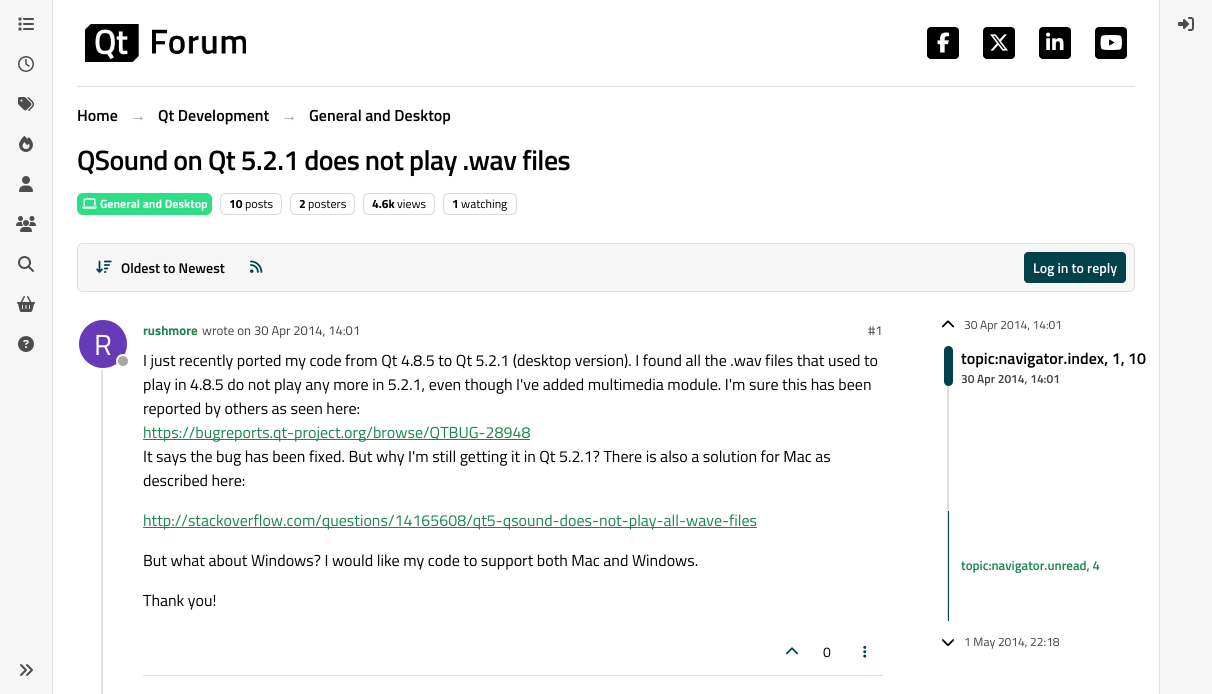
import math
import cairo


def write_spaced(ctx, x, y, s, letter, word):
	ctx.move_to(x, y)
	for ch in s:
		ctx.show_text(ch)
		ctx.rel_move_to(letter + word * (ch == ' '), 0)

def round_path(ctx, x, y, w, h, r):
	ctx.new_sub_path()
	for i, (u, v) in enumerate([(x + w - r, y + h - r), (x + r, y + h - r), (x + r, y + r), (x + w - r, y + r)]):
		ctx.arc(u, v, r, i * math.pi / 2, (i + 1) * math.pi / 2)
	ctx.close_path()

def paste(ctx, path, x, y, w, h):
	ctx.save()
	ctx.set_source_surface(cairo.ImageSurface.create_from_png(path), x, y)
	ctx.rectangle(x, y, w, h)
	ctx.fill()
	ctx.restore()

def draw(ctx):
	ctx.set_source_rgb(1, 1, 1)
	ctx.paint()
	ctx.set_source_rgb(0.961, 0.961, 0.961)
	ctx.rectangle(0, 0, 52, 694)
	ctx.fill()
	ctx.set_source_rgb(0.878, 0.878, 0.878)
	ctx.rectangle(52, 0, 1, 694)
	ctx.fill()
	paste(ctx, 'media/1.png', 18, 17, 16, 14)
	paste(ctx, 'media/2.png', 18, 56, 16, 16)
	paste(ctx, 'media/3.png', 18, 97, 16, 14)
	paste(ctx, 'media/4.png', 19, 136, 14, 16)
	paste(ctx, 'media/5.png', 19, 176, 14, 16)
	paste(ctx, 'media/6.png', 16, 216, 20, 16)
	paste(ctx, 'media/7.png', 18, 256, 16, 16)
	paste(ctx, 'media/8.png', 17, 296, 18, 16)
	paste(ctx, 'media/9.png', 18, 336, 16, 16)
	paste(ctx, 'media/10.png', 20, 664, 13, 12)
	ctx.rectangle(77, 86, 1058, 1)
	ctx.fill()
	paste(ctx, 'media/11.png', 85, 24, 161, 38)
	ctx.set_source_rgb(0, 0, 0)
	round_path(ctx, 927, 27, 32, 32, 4)
	ctx.fill()
	paste(ctx, 'media/12.png', 937, 32, 12, 21)
	round_path(ctx, 983, 27, 32, 32, 4)
	ctx.fill()
	paste(ctx, 'media/13.png', 990, 34, 18, 17)
	round_path(ctx, 1039, 27, 32, 32, 4)
	ctx.fill()
	paste(ctx, 'media/14.png', 1046, 32, 18, 18)
	round_path(ctx, 1095, 27, 32, 32, 4)
	ctx.fill()
	paste(ctx, 'media/15.png', 1100, 35, 22, 15)
	ctx.select_font_face('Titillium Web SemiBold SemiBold')
	ctx.set_font_size(16)
	ctx.move_to(77, 121)
	ctx.show_text('Home')
	ctx.select_font_face('Liberation Sans', cairo.FONT_SLANT_NORMAL, cairo.FONT_WEIGHT_BOLD)
	ctx.set_source_rgb(0.62, 0.62, 0.62)
	ctx.move_to(130, 121)
	ctx.show_text('→')
	ctx.select_font_face('Titillium Web SemiBold SemiBold')
	ctx.set_source_rgb(0, 0, 0)
	ctx.move_to(158, 121)
	ctx.show_text('Qt Development')
	ctx.select_font_face('Liberation Sans', cairo.FONT_SLANT_NORMAL, cairo.FONT_WEIGHT_BOLD)
	ctx.set_source_rgb(0.62, 0.62, 0.62)
	ctx.move_to(281, 121)
	ctx.show_text('→')
	ctx.select_font_face('Titillium Web SemiBold SemiBold')
	ctx.set_source_rgb(0, 0, 0)
	ctx.move_to(309, 121)
	ctx.show_text('General and Desktop')
	ctx.set_font_size(28)
	write_spaced(ctx, 77, 170, 'QSound on Qt 5.2.1 does not play .wav files', -0.55, 0)
	ctx.set_source_rgb(0.173, 0.871, 0.522)
	round_path(ctx, 77.5, 193.5, 134, 21, 5.5)
	ctx.fill_preserve()
	ctx.set_line_width(1)
	ctx.stroke()
	paste(ctx, 'media/16.png', 82, 198, 15, 11)
	ctx.select_font_face('Titillium Web', cairo.FONT_SLANT_NORMAL, cairo.FONT_WEIGHT_BOLD)
	ctx.set_font_size(12)
	ctx.set_source_rgb(1, 1, 1)
	ctx.move_to(100, 208)
	ctx.show_text('General and Desktop')
	round_path(ctx, 220.5, 193.5, 61, 21, 5.5)
	ctx.set_source_rgb(0.851, 0.851, 0.851)
	ctx.stroke()
	ctx.set_source_rgb(0, 0, 0)
	ctx.move_to(229, 208)
	ctx.show_text('10')
	ctx.select_font_face('Titillium Web')
	ctx.move_to(245, 208)
	ctx.show_text('posts')
	round_path(ctx, 290.5, 193.5, 64, 21, 5.5)
	ctx.set_source_rgb(0.851, 0.851, 0.851)
	ctx.stroke()
	ctx.select_font_face('Titillium Web', cairo.FONT_SLANT_NORMAL, cairo.FONT_WEIGHT_BOLD)
	ctx.set_source_rgb(0, 0, 0)
	ctx.move_to(299, 208)
	ctx.show_text('2')
	ctx.select_font_face('Titillium Web')
	ctx.move_to(308, 208)
	ctx.show_text('posters')
	round_path(ctx, 363.5, 193.5, 71, 21, 5.5)
	ctx.set_source_rgb(0.851, 0.851, 0.851)
	ctx.stroke()
	ctx.select_font_face('Titillium Web', cairo.FONT_SLANT_NORMAL, cairo.FONT_WEIGHT_BOLD)
	ctx.set_source_rgb(0, 0, 0)
	ctx.move_to(372, 208)
	ctx.show_text('4.6k')
	ctx.select_font_face('Titillium Web')
	ctx.move_to(397, 208)
	ctx.show_text('views')
	round_path(ctx, 443.5, 193.5, 73, 21, 5.5)
	ctx.set_source_rgb(0.851, 0.851, 0.851)
	ctx.stroke()
	ctx.select_font_face('Titillium Web', cairo.FONT_SLANT_NORMAL, cairo.FONT_WEIGHT_BOLD)
	ctx.set_source_rgb(0, 0, 0)
	ctx.move_to(452, 208)
	ctx.show_text('1')
	ctx.select_font_face('Titillium Web')
	ctx.move_to(461, 208)
	ctx.show_text('watching')
	ctx.set_source_rgb(0.961, 0.961, 0.961)
	round_path(ctx, 77.5, 243.5, 1057, 48, 5.5)
	ctx.fill_preserve()
	ctx.set_source_rgb(0.878, 0.878, 0.878)
	ctx.stroke()
	paste(ctx, 'media/17.png', 96, 260, 16, 13)
	ctx.select_font_face('Titillium Web SemiBold SemiBold')
	ctx.set_font_size(14)
	ctx.set_source_rgb(0, 0, 0)
	ctx.move_to(121, 273)
	ctx.show_text('Oldest to Newest')
	paste(ctx, 'media/18.png', 250, 260, 13, 13)
	ctx.set_source_rgb(0, 0.255, 0.29)
	round_path(ctx, 1024.5, 252.5, 101, 30, 3.5)
	ctx.fill_preserve()
	ctx.stroke()
	ctx.set_source_rgb(1, 1, 1)
	ctx.move_to(1033, 273)
	ctx.show_text('Log in to reply')
	ctx.set_source_rgb(0.878, 0.878, 0.878)
	ctx.rectangle(101, 320, 2, 374)
	ctx.fill()
	ctx.arc(103, 344, 25, 0, 2 * math.pi)
	ctx.set_source_rgb(1, 1, 1)
	ctx.set_line_width(2)
	ctx.stroke()
	ctx.set_source_rgb(0.404, 0.227, 0.718)
	ctx.arc(103, 344, 24, 0, 2 * math.pi)
	ctx.fill()
	ctx.select_font_face('Titillium Web')
	ctx.set_font_size(29)
	ctx.set_source_rgb(1, 1, 1)
	ctx.move_to(94, 355)
	ctx.show_text('R')
	ctx.set_source_rgb(0.651, 0.651, 0.651)
	ctx.new_path()
	ctx.arc(123, 361, 6, 0, 2 * math.pi)
	ctx.fill_preserve()
	ctx.set_source_rgb(1, 1, 1)
	ctx.stroke()
	ctx.select_font_face('Titillium Web', cairo.FONT_SLANT_NORMAL, cairo.FONT_WEIGHT_BOLD)
	ctx.set_font_size(13)
	ctx.set_source_rgb(0.102, 0.522, 0.314)
	ctx.move_to(143, 335)
	ctx.show_text('rushmore')
	ctx.select_font_face('Titillium Web')
	ctx.set_source_rgb(0.251, 0.251, 0.251)
	ctx.move_to(202, 335)
	ctx.show_text('wrote on 30 Apr 2014, 14:01')
	ctx.move_to(868, 335)
	ctx.show_text('#1')
	ctx.set_font_size(16)
	ctx.set_source_rgb(0, 0, 0)
	for x, y, s in [
		(143, 366, 'I just recently ported my code from Qt 4.8.5 to Qt 5.2.1 (desktop version). I found all the .wav files that used to'),
		(143, 390, 'play in 4.8.5 do not play any more in 5.2.1, even though I\'ve added multimedia module. I\'m sure this has been'),
		(143, 414, 'reported by others as seen here:'),
	]:
		ctx.move_to(x, y)
		ctx.show_text(s)
	ctx.set_source_rgb(0.102, 0.522, 0.314)
	ctx.rectangle(143, 439, 387, 1)
	ctx.fill()
	ctx.move_to(143, 438)
	ctx.show_text('https://bugreports.qt-project.org/browse/QTBUG-28948')
	ctx.set_source_rgb(0, 0, 0)
	ctx.move_to(143, 462)
	ctx.show_text('It says the bug has been fixed. But why I\'m still getting it in Qt 5.2.1? There is also a solution for Mac as')
	ctx.move_to(143, 486)
	ctx.show_text('described here:')
	ctx.set_source_rgb(0.102, 0.522, 0.314)
	ctx.rectangle(143, 527, 614, 1)
	ctx.fill()
	ctx.move_to(143, 526)
	ctx.show_text('http://stackoverflow.com/questions/14165608/qt5-qsound-does-not-play-all-wave-files')
	ctx.set_source_rgb(0, 0, 0)
	ctx.move_to(143, 566)
	ctx.show_text('But what about Windows? I would like my code to support both Mac and Windows.')
	ctx.move_to(143, 606)
	ctx.show_text('Thank you!')
	ctx.set_source_rgb(0.878, 0.878, 0.878)
	ctx.rectangle(143, 675, 740, 1)
	ctx.fill()
	paste(ctx, 'media/19.png', 785, 647, 14, 8)
	ctx.set_font_size(14)
	ctx.set_source_rgb(0, 0, 0)
	ctx.move_to(823, 657)
	ctx.show_text('0')
	paste(ctx, 'media/20.png', 863, 645, 4, 13)
	paste(ctx, 'media/21.png', 941, 320, 14, 8)
	ctx.set_font_size(12)
	ctx.set_source_rgb(0.251, 0.251, 0.251)
	ctx.move_to(964, 329)
	ctx.show_text('30 Apr 2014, 14:01')
	ctx.set_source_rgb(0.878, 0.878, 0.878)
	ctx.rectangle(947, 346, 2, 275)
	ctx.fill()
	ctx.set_source_rgb(0, 0.255, 0.29)
	round_path(ctx, 944, 346, 9, 40, 4.5)
	ctx.fill()
	ctx.select_font_face('Titillium Web SemiBold SemiBold')
	ctx.set_font_size(16)
	ctx.set_source_rgb(0, 0, 0)
	ctx.move_to(961, 364)
	ctx.show_text('topic:navigator.index, 1, 10')
	ctx.set_font_size(12)
	ctx.set_source_rgb(0.251, 0.251, 0.251)
	ctx.move_to(961, 383)
	ctx.show_text('30 Apr 2014, 14:01')
	ctx.set_source_rgb(0, 0.255, 0.29)
	ctx.rectangle(948, 511, 1, 110)
	ctx.fill()
	ctx.set_font_size(13)
	ctx.set_source_rgb(0.102, 0.522, 0.314)
	ctx.move_to(961, 570)
	ctx.show_text('topic:navigator.unread, 4')
	paste(ctx, 'media/22.png', 942, 639, 12, 7)
	ctx.select_font_face('Titillium Web')
	ctx.set_font_size(12)
	ctx.set_source_rgb(0.251, 0.251, 0.251)
	ctx.move_to(964, 646)
	ctx.show_text('1 May 2014, 22:18')
	ctx.set_source_rgb(0.961, 0.961, 0.961)
	ctx.rectangle(1160, 0, 52, 694)
	ctx.fill()
	ctx.set_source_rgb(0.878, 0.878, 0.878)
	ctx.rectangle(1159, 0, 1, 694)
	ctx.fill()
	paste(ctx, 'media/23.png', 1178, 17, 16, 14)


surface = cairo.ImageSurface(cairo.FORMAT_RGB24, 1212, 694)
ctx = cairo.Context(surface)
options = cairo.FontOptions()
options.set_hint_metrics(cairo.HINT_METRICS_OFF)
options.set_hint_style(cairo.HINT_STYLE_NONE)
ctx.set_font_options(options)
ctx.set_miter_limit(4)
draw(ctx)
surface.write_to_png('image.png')
